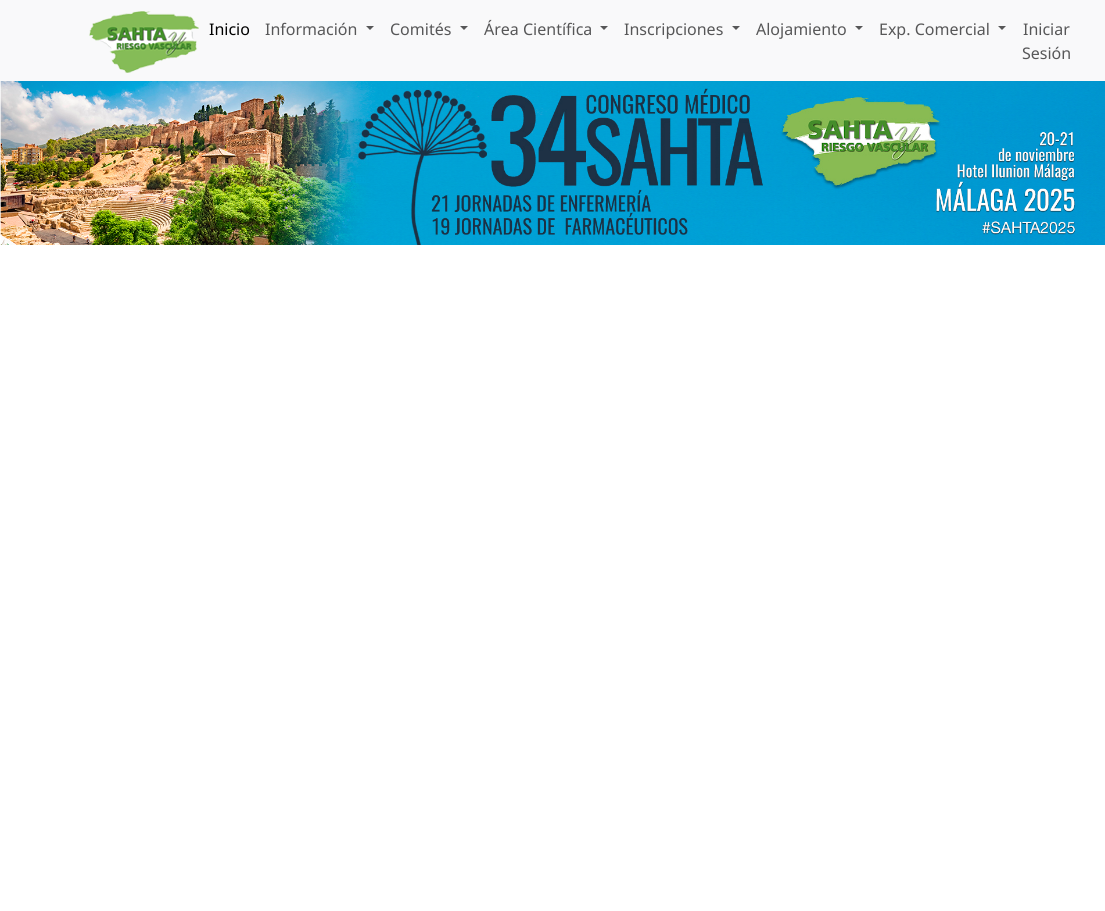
import math
import cairo


def paste(ctx, path, x, y, w, h):
	ctx.save()
	ctx.set_source_surface(cairo.ImageSurface.create_from_png(path), x, y)
	ctx.rectangle(x, y, w, h)
	ctx.fill()
	ctx.restore()

def draw(ctx):
	ctx.set_source_rgb(1, 1, 1)
	ctx.paint()
	ctx.set_source_rgb(0.973, 0.976, 0.98)
	ctx.rectangle(0, 0, 1105, 81)
	ctx.fill()
	paste(ctx, 'media/1.png', 89, 11, 110, 62)
	ctx.select_font_face('Noto Sans')
	ctx.set_font_size(16)
	ctx.set_source_rgb(0, 0, 0)
	ctx.move_to(209, 35)
	ctx.show_text('Inicio')
	ctx.set_source_rgb(0.341, 0.341, 0.345)
	ctx.move_to(265, 35)
	ctx.show_text('Información')
	ctx.new_path()
	ctx.move_to(366, 26)
	ctx.line_to(374, 26)
	ctx.line_to(370, 30)
	ctx.close_path()
	ctx.fill()
	ctx.move_to(390, 35)
	ctx.show_text('Comités')
	ctx.new_path()
	ctx.move_to(460, 26)
	ctx.line_to(468, 26)
	ctx.line_to(464, 30)
	ctx.close_path()
	ctx.fill()
	ctx.move_to(484, 35)
	ctx.show_text('Área Científica')
	ctx.new_path()
	ctx.move_to(600, 26)
	ctx.line_to(608, 26)
	ctx.line_to(604, 30)
	ctx.close_path()
	ctx.fill()
	ctx.move_to(624, 35)
	ctx.show_text('Inscripciones')
	ctx.new_path()
	ctx.move_to(732, 26)
	ctx.line_to(740, 26)
	ctx.line_to(736, 30)
	ctx.close_path()
	ctx.fill()
	ctx.move_to(756, 35)
	ctx.show_text('Alojamiento')
	ctx.new_path()
	ctx.move_to(855, 26)
	ctx.line_to(863, 26)
	ctx.line_to(859, 30)
	ctx.close_path()
	ctx.fill()
	ctx.move_to(879, 35)
	ctx.show_text('Exp. Comercial')
	ctx.new_path()
	ctx.move_to(998, 26)
	ctx.line_to(1006, 26)
	ctx.line_to(1002, 30)
	ctx.close_path()
	ctx.fill()
	ctx.move_to(1023, 35)
	ctx.show_text('Iniciar')
	ctx.move_to(1022, 59)
	ctx.show_text('Sesión')
	paste(ctx, 'media/2.png', 0, 81, 1105, 164)


surface = cairo.ImageSurface(cairo.FORMAT_RGB24, 1105, 911)
ctx = cairo.Context(surface)
options = cairo.FontOptions()
options.set_hint_metrics(cairo.HINT_METRICS_OFF)
options.set_hint_style(cairo.HINT_STYLE_NONE)
ctx.set_font_options(options)
ctx.set_miter_limit(4)
draw(ctx)
surface.write_to_png('image.png')
